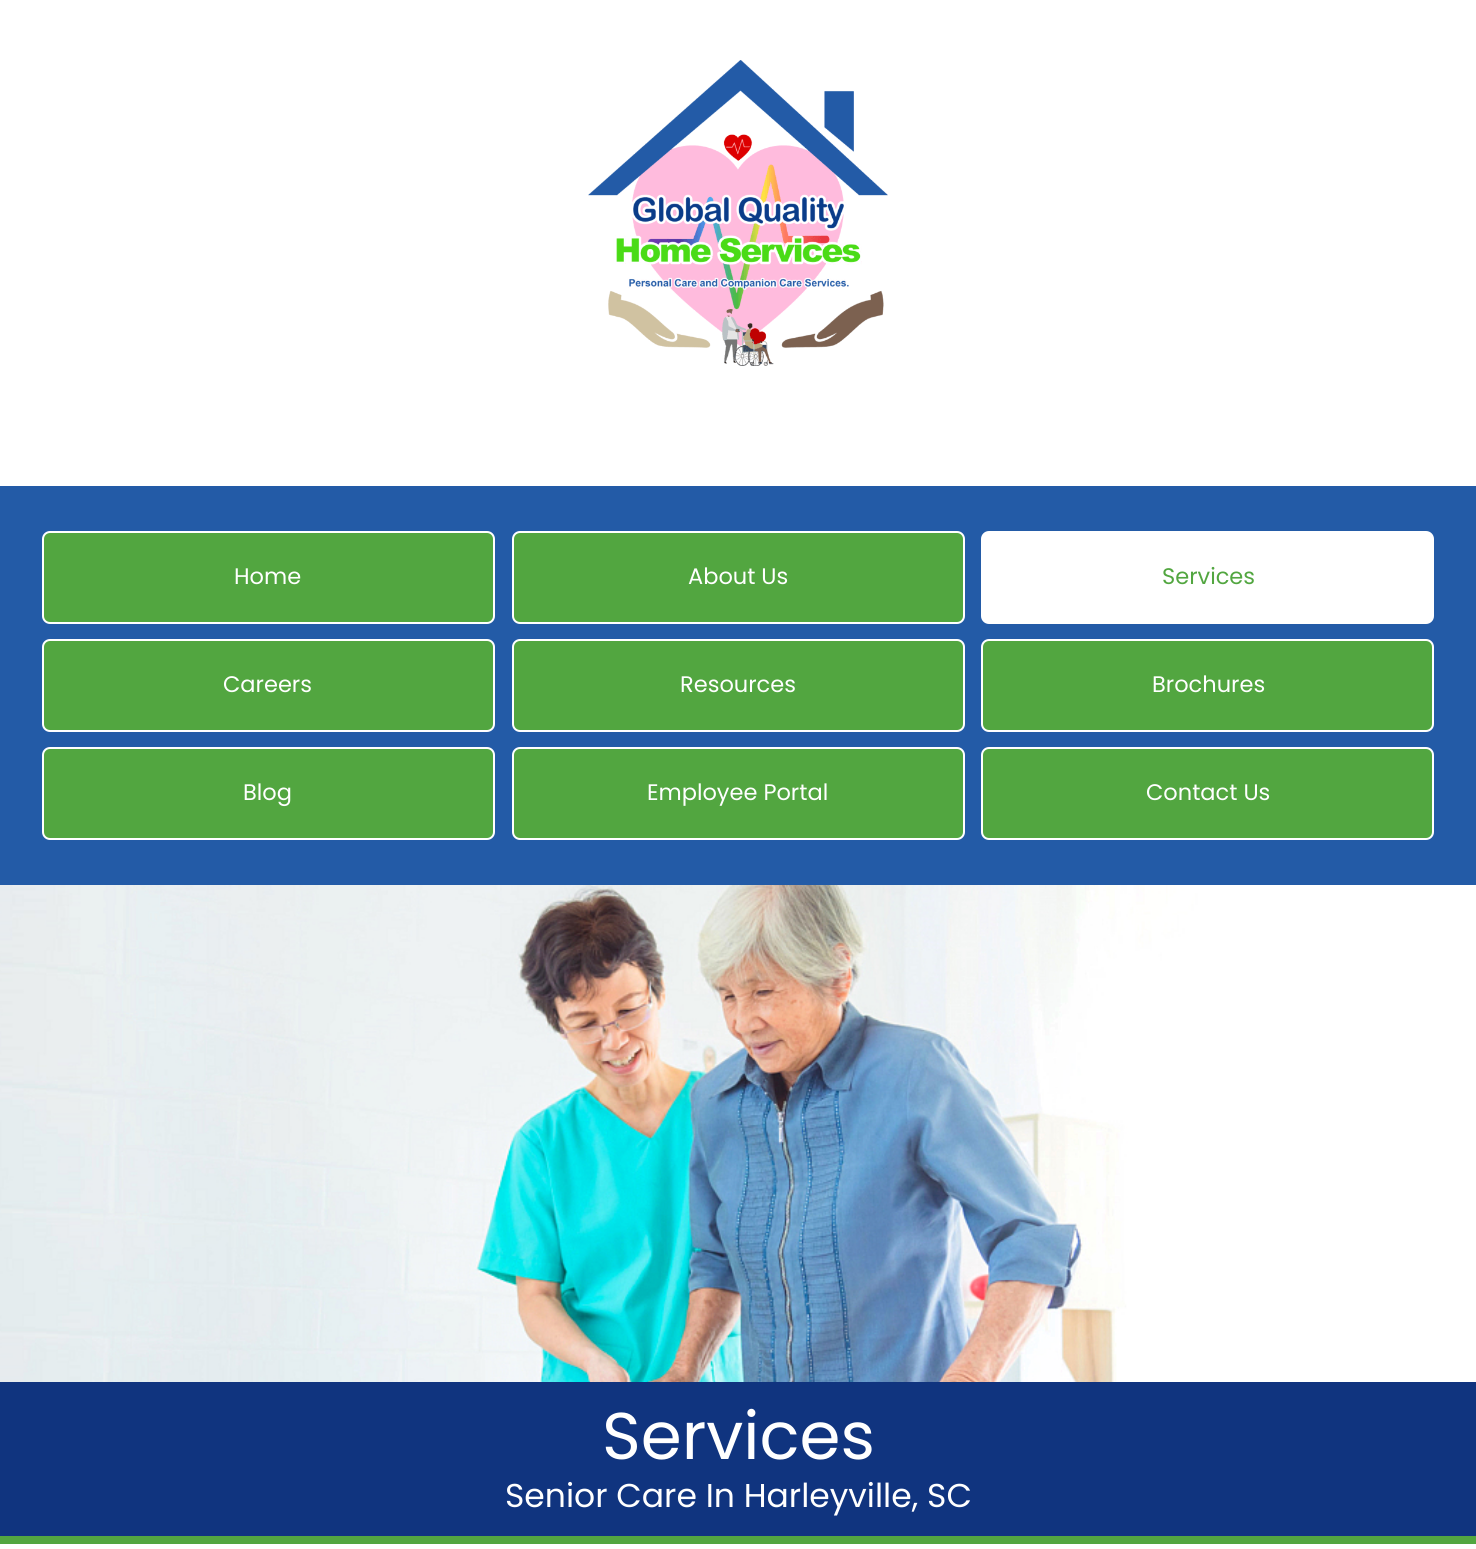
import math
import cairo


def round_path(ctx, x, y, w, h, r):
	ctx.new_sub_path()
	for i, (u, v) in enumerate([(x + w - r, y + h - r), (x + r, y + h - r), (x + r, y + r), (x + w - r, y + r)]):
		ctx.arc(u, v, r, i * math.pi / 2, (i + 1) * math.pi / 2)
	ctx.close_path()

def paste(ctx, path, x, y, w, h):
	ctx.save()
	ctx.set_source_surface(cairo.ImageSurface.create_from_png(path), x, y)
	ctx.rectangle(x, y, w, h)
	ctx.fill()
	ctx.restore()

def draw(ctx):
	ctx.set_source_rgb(1, 1, 1)
	ctx.paint()
	paste(ctx, 'media/1.png', 588, 60, 300, 306)
	ctx.set_source_rgb(0.137, 0.357, 0.655)
	ctx.rectangle(0, 486, 1476, 399)
	ctx.fill()
	ctx.set_source_rgb(0.322, 0.651, 0.251)
	round_path(ctx, 43, 532, 451, 91, 7)
	ctx.fill_preserve()
	ctx.set_source_rgb(1, 1, 1)
	ctx.stroke()
	ctx.select_font_face('Poppins')
	ctx.set_font_size(22.5)
	ctx.move_to(234, 584)
	ctx.show_text('Home')
	ctx.set_source_rgb(0.322, 0.651, 0.251)
	round_path(ctx, 513, 532, 451, 91, 7)
	ctx.fill_preserve()
	ctx.set_source_rgb(1, 1, 1)
	ctx.stroke()
	ctx.move_to(688, 584)
	ctx.show_text('About Us')
	round_path(ctx, 982, 532, 451, 91, 7)
	ctx.fill_preserve()
	ctx.stroke()
	ctx.set_source_rgb(0.322, 0.651, 0.251)
	ctx.move_to(1162, 584)
	ctx.show_text('Services')
	round_path(ctx, 43, 640, 451, 91, 7)
	ctx.fill_preserve()
	ctx.set_source_rgb(1, 1, 1)
	ctx.stroke()
	ctx.move_to(223, 692)
	ctx.show_text('Careers')
	ctx.set_source_rgb(0.322, 0.651, 0.251)
	round_path(ctx, 513, 640, 451, 91, 7)
	ctx.fill_preserve()
	ctx.set_source_rgb(1, 1, 1)
	ctx.stroke()
	ctx.move_to(680, 692)
	ctx.show_text('Resources')
	ctx.set_source_rgb(0.322, 0.651, 0.251)
	round_path(ctx, 982, 640, 451, 91, 7)
	ctx.fill_preserve()
	ctx.set_source_rgb(1, 1, 1)
	ctx.stroke()
	ctx.move_to(1152, 692)
	ctx.show_text('Brochures')
	ctx.set_source_rgb(0.322, 0.651, 0.251)
	round_path(ctx, 43, 748, 451, 91, 7)
	ctx.fill_preserve()
	ctx.set_source_rgb(1, 1, 1)
	ctx.stroke()
	ctx.move_to(243, 800)
	ctx.show_text('Blog')
	ctx.set_source_rgb(0.322, 0.651, 0.251)
	round_path(ctx, 513, 748, 451, 91, 7)
	ctx.fill_preserve()
	ctx.set_source_rgb(1, 1, 1)
	ctx.stroke()
	ctx.move_to(647, 800)
	ctx.show_text('Employee Portal')
	ctx.set_source_rgb(0.322, 0.651, 0.251)
	round_path(ctx, 982, 748, 451, 91, 7)
	ctx.fill_preserve()
	ctx.set_source_rgb(1, 1, 1)
	ctx.stroke()
	ctx.move_to(1146, 800)
	ctx.show_text('Contact Us')
	paste(ctx, 'media/2.png', 0, 885, 1214, 497)
	ctx.set_source_rgb(0.063, 0.204, 0.498)
	ctx.rectangle(0, 1382, 1476, 154)
	ctx.fill()
	ctx.set_font_size(66)
	ctx.set_source_rgb(1, 1, 1)
	ctx.move_to(602, 1459)
	ctx.show_text('Services')
	ctx.set_font_size(33)
	ctx.move_to(505, 1507)
	ctx.show_text('Senior Care In Harleyville, SC')
	ctx.set_source_rgb(0.322, 0.651, 0.251)
	ctx.rectangle(0, 1536, 1476, 8)
	ctx.fill()


surface = cairo.ImageSurface(cairo.FORMAT_RGB24, 1476, 1549)
ctx = cairo.Context(surface)
options = cairo.FontOptions()
options.set_hint_metrics(cairo.HINT_METRICS_OFF)
options.set_hint_style(cairo.HINT_STYLE_NONE)
ctx.set_font_options(options)
ctx.set_miter_limit(4)
draw(ctx)
surface.write_to_png('image.png')
